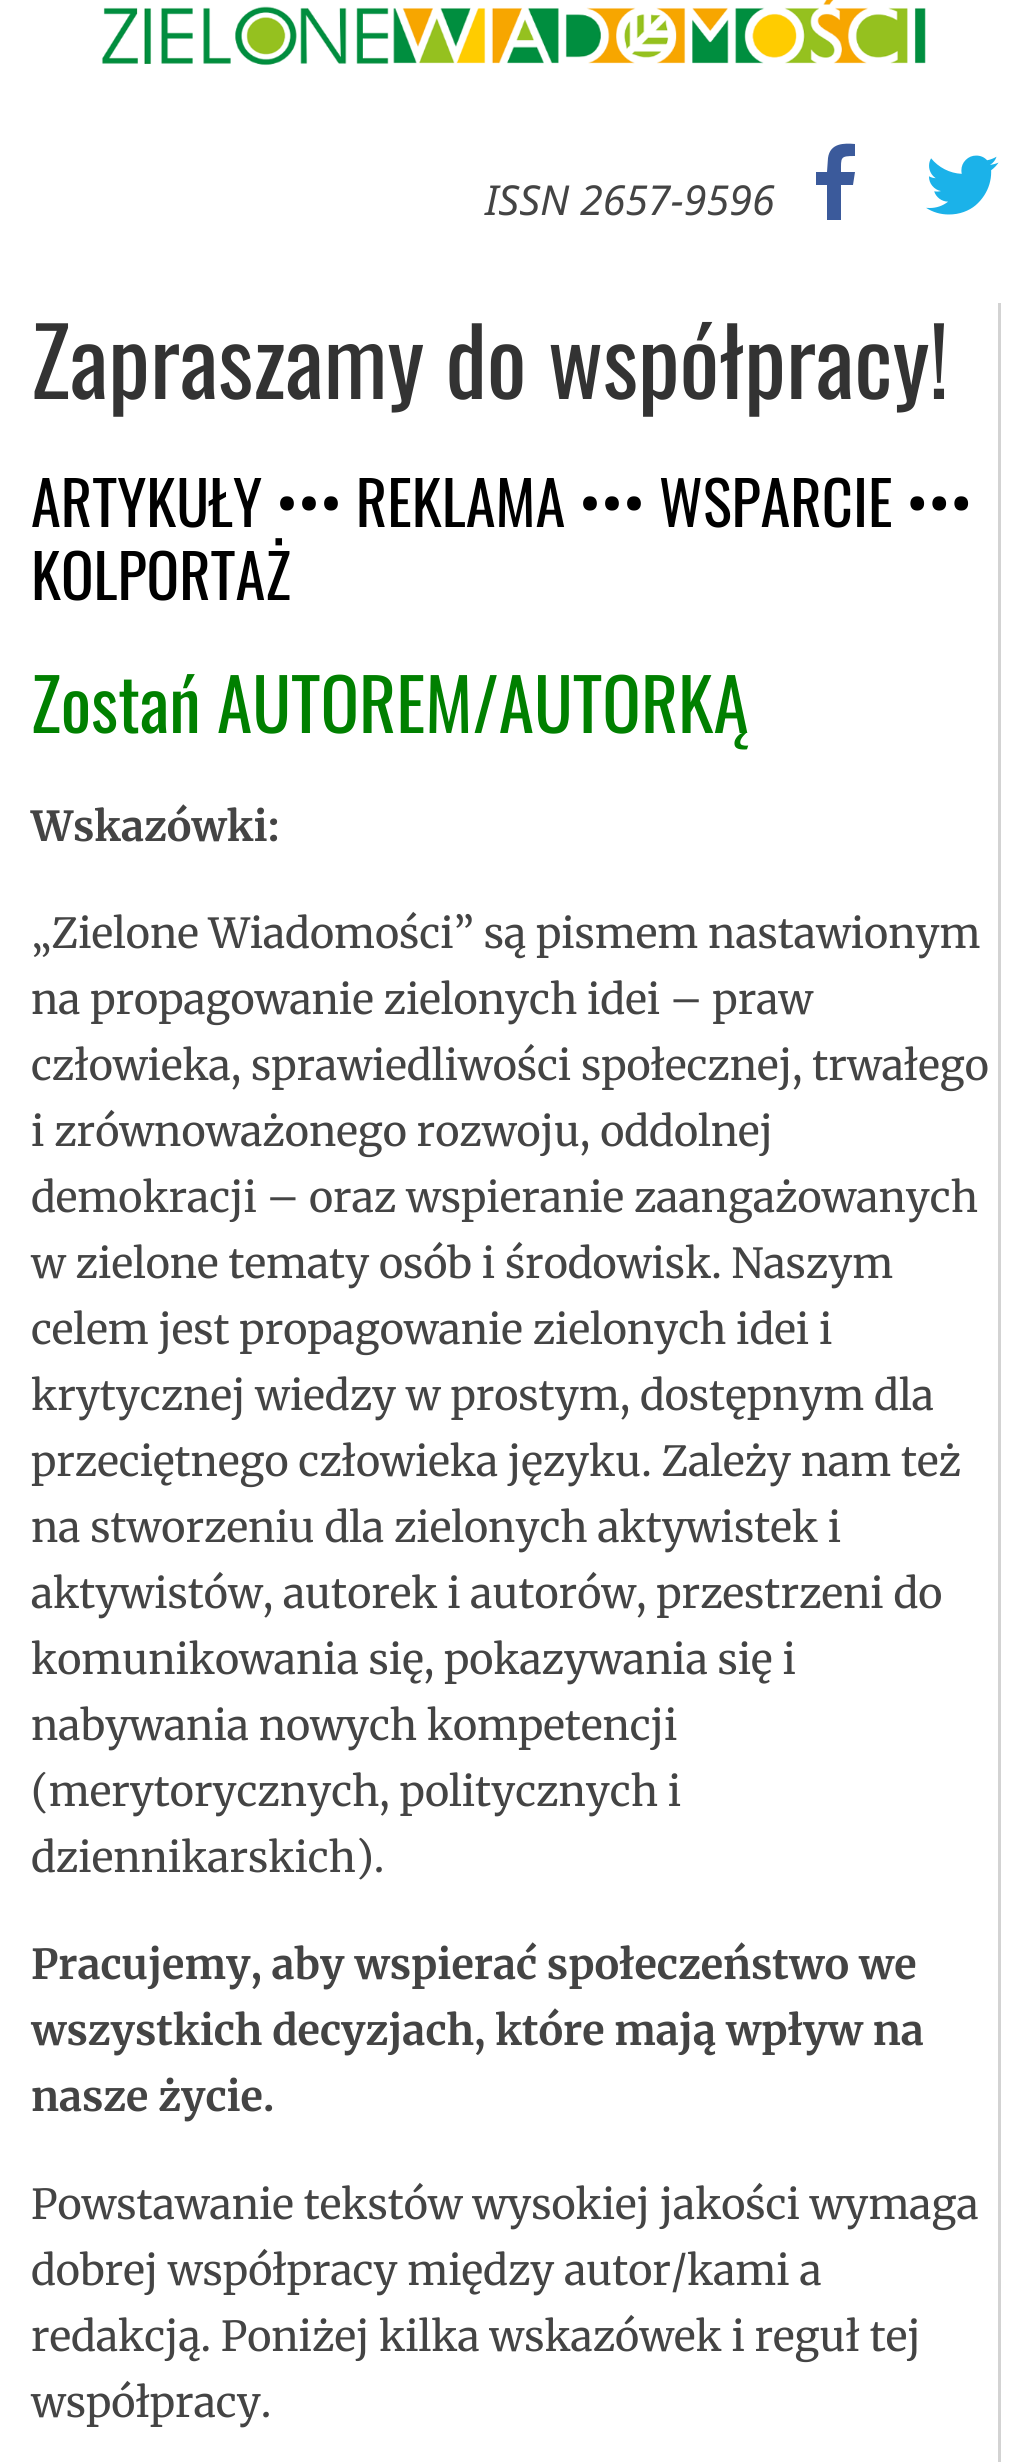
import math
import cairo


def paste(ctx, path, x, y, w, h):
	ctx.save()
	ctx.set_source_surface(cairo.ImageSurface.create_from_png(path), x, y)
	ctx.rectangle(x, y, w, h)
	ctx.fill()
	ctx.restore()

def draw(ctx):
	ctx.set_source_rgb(1, 1, 1)
	ctx.paint()
	paste(ctx, 'media/1.png', 101, 0, 825, 66)
	ctx.select_font_face('Noto Sans', cairo.FONT_SLANT_ITALIC)
	ctx.set_font_size(41.25)
	ctx.set_source_rgb(0.267, 0.267, 0.267)
	ctx.move_to(485, 215)
	ctx.show_text('ISSN 2657-9596')
	ctx.set_source_rgb(0.231, 0.353, 0.608)
	ctx.new_path()
	ctx.move_to(855, 144)
	ctx.line_to(855, 156)
	ctx.curve_to(840, 156, 841, 157, 841, 172)
	ctx.line_to(855, 172)
	ctx.line_to(853, 185)
	ctx.line_to(841, 185)
	ctx.line_to(841, 220)
	ctx.line_to(827, 220)
	ctx.line_to(827, 185)
	ctx.line_to(816, 185)
	ctx.line_to(816, 172)
	ctx.line_to(827, 172)
	ctx.line_to(828, 158)
	ctx.curve_to(830, 143, 844, 143, 855, 144)
	ctx.close_path()
	ctx.fill()
	paste(ctx, 'media/2.png', 926, 155, 73, 60)
	ctx.set_source_rgb(0.827, 0.827, 0.827)
	ctx.rectangle(998, 303, 3, 2159)
	ctx.fill()
	ctx.select_font_face('Oswald')
	ctx.set_font_size(93.5)
	ctx.set_source_rgb(0.2, 0.2, 0.2)
	ctx.move_to(31, 399)
	ctx.show_text('Zapraszamy do współpracy!')
	ctx.set_font_size(60.5)
	ctx.set_source_rgb(0, 0, 0)
	ctx.move_to(31, 527)
	ctx.show_text('ARTYKUŁY ••• REKLAMA ••• WSPARCIE •••')
	ctx.move_to(31, 600)
	ctx.show_text('KOLPORTAŻ')
	ctx.set_font_size(71.5)
	ctx.set_source_rgb(0, 0.502, 0)
	ctx.move_to(31, 733)
	ctx.show_text('Zostań AUTOREM/AUTORKĄ')
	ctx.select_font_face('Merriweather', cairo.FONT_SLANT_NORMAL, cairo.FONT_WEIGHT_BOLD)
	ctx.set_font_size(41.25)
	ctx.set_source_rgb(0.267, 0.267, 0.267)
	ctx.move_to(31, 841)
	ctx.show_text('Wskazówki:')
	ctx.select_font_face('Merriweather')
	for x, y, s in [
		(31, 948, '„Zielone Wiadomości” są pismem nastawionym'),
		(31, 1014, 'na propagowanie zielonych idei – praw'),
		(31, 1080, 'człowieka, sprawiedliwości społecznej, trwałego'),
		(31, 1146, 'i zrównoważonego rozwoju, oddolnej'),
		(31, 1212, 'demokracji – oraz wspieranie zaangażowanych'),
		(31, 1278, 'w zielone tematy osób i środowisk. Naszym'),
		(31, 1344, 'celem jest propagowanie zielonych idei i'),
		(31, 1410, 'krytycznej wiedzy w prostym, dostępnym dla'),
		(31, 1476, 'przeciętnego człowieka języku. Zależy nam też'),
		(31, 1542, 'na stworzeniu dla zielonych aktywistek i'),
		(31, 1608, 'aktywistów, autorek i autorów, przestrzeni do'),
		(31, 1674, 'komunikowania się, pokazywania się i'),
		(31, 1740, 'nabywania nowych kompetencji'),
		(31, 1806, '(merytorycznych, politycznych i'),
		(31, 1872, 'dziennikarskich).'),
	]:
		ctx.move_to(x, y)
		ctx.show_text(s)
	ctx.select_font_face('Merriweather', cairo.FONT_SLANT_NORMAL, cairo.FONT_WEIGHT_BOLD)
	for x, y, s in [
		(31, 1979, 'Pracujemy, aby wspierać społeczeństwo we'),
		(31, 2045, 'wszystkich decyzjach, które mają wpływ na'),
		(31, 2111, 'nasze życie.'),
	]:
		ctx.move_to(x, y)
		ctx.show_text(s)
	ctx.select_font_face('Merriweather')
	for x, y, s in [
		(31, 2219, 'Powstawanie tekstów wysokiej jakości wymaga'),
		(31, 2285, 'dobrej współpracy między autor/kami a'),
		(31, 2351, 'redakcją. Poniżej kilka wskazówek i reguł tej'),
		(31, 2417, 'współpracy.'),
	]:
		ctx.move_to(x, y)
		ctx.show_text(s)


surface = cairo.ImageSurface(cairo.FORMAT_RGB24, 1026, 2462)
ctx = cairo.Context(surface)
options = cairo.FontOptions()
options.set_hint_metrics(cairo.HINT_METRICS_OFF)
options.set_hint_style(cairo.HINT_STYLE_NONE)
ctx.set_font_options(options)
ctx.set_miter_limit(4)
draw(ctx)
surface.write_to_png('image.png')
